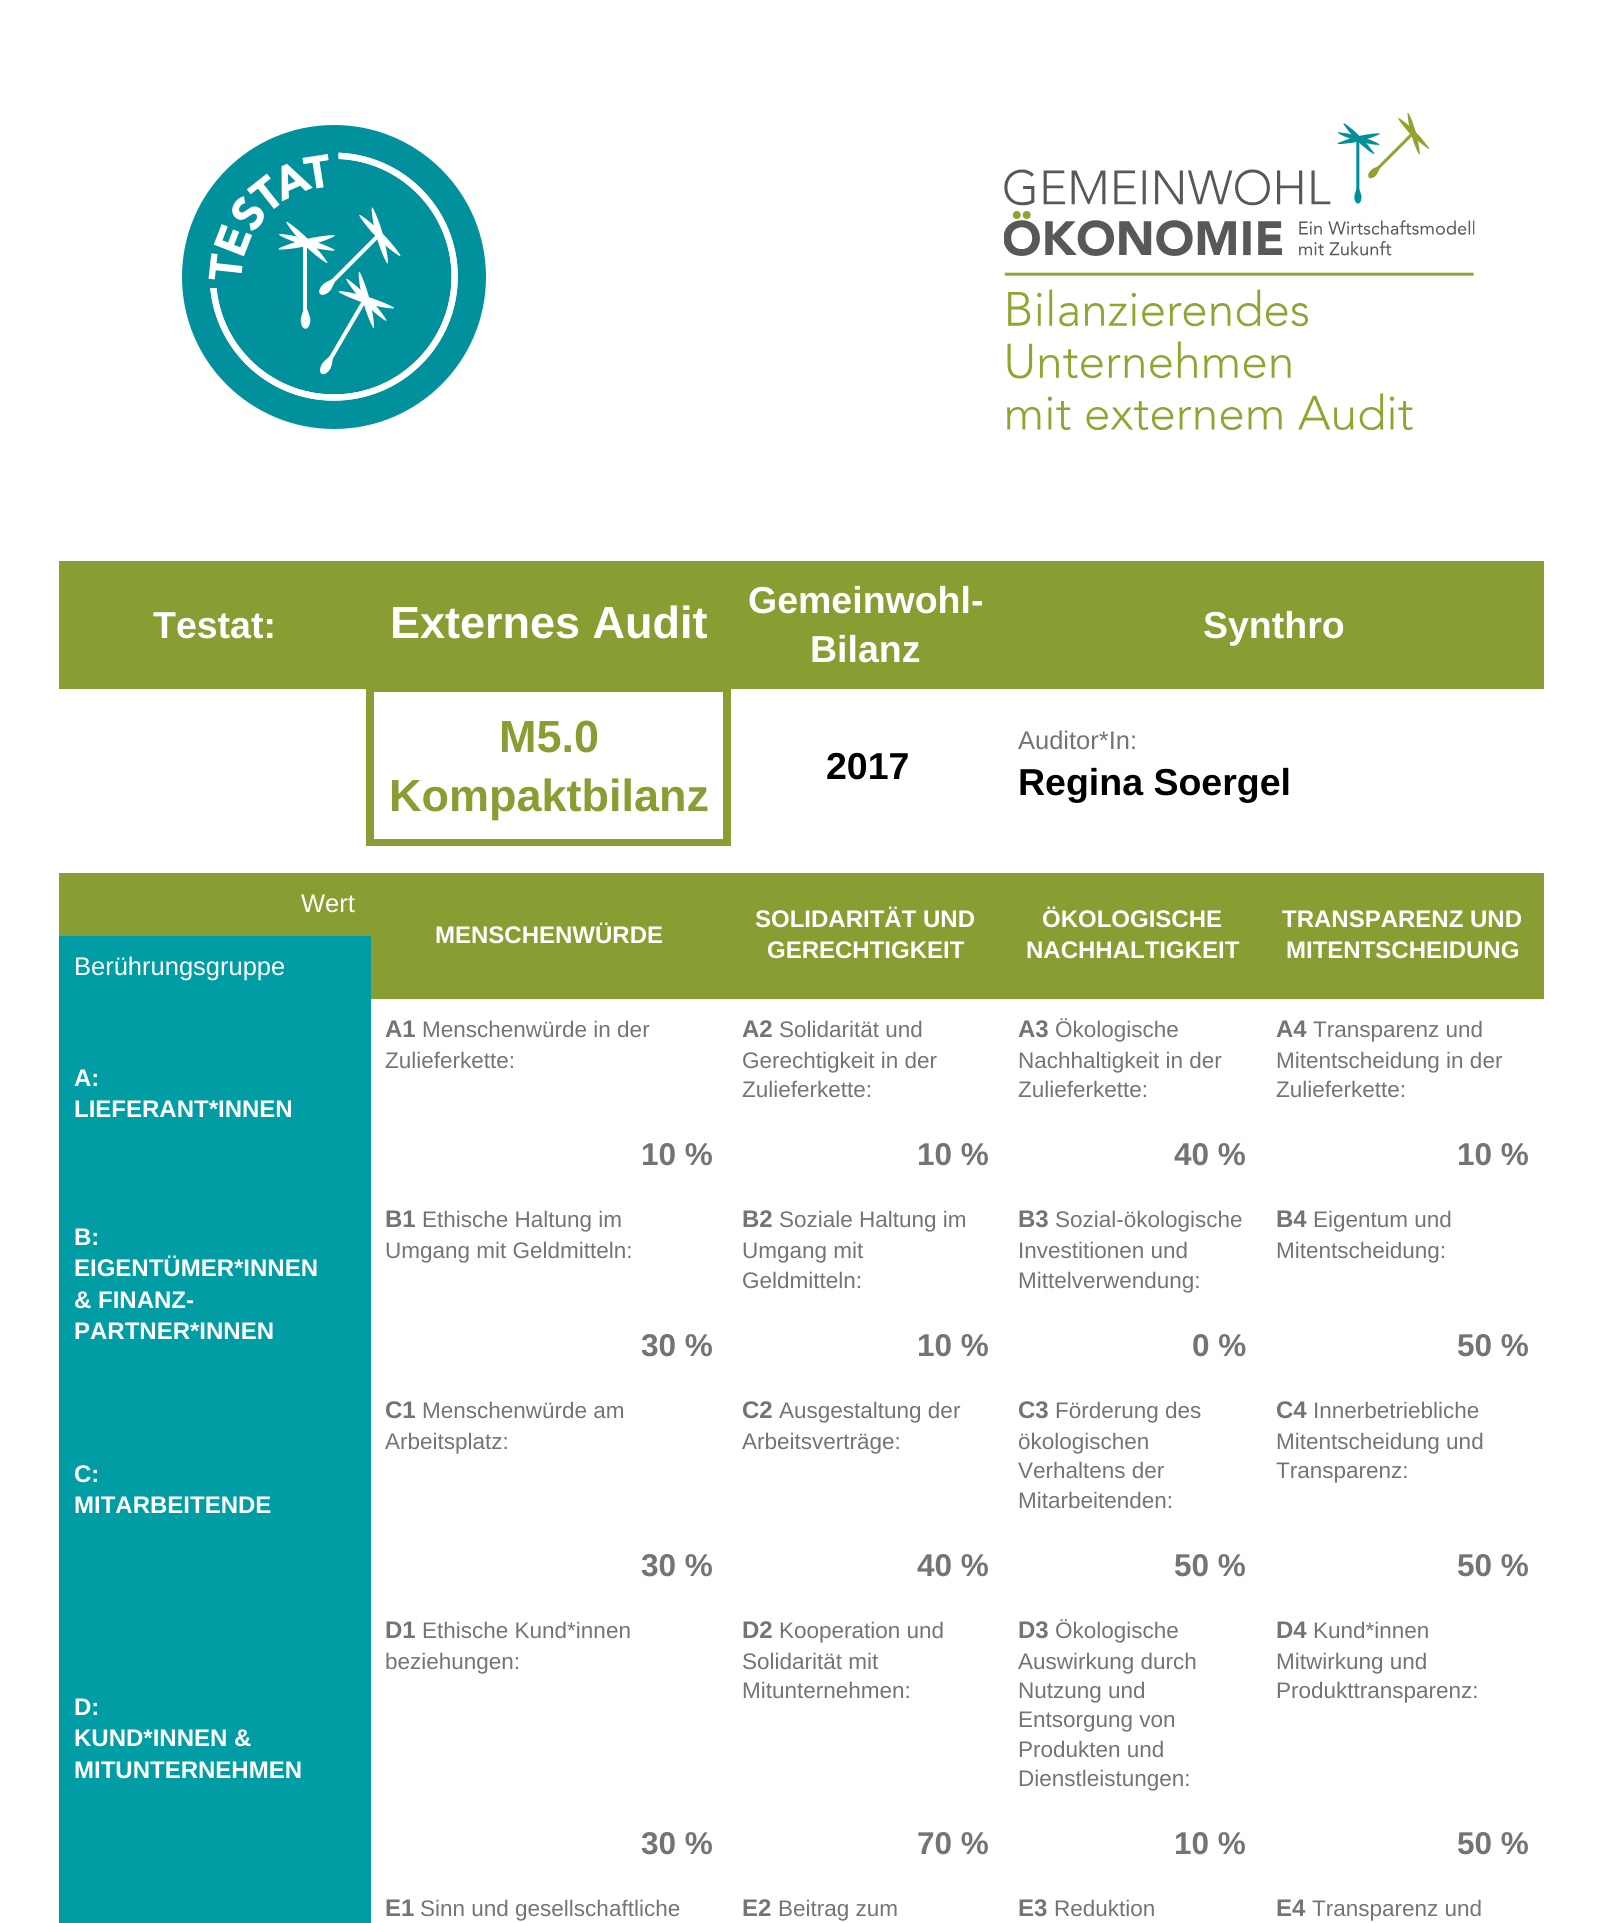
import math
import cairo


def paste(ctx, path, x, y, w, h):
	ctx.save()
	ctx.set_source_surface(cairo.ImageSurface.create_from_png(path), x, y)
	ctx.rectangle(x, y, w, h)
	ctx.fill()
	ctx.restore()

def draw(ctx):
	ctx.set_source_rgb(1, 1, 1)
	ctx.paint()
	paste(ctx, 'media/1.png', 182, 125, 304, 304)
	paste(ctx, 'media/2.png', 1004, 113, 471, 317)
	ctx.set_source_rgb(0.533, 0.62, 0.2)
	ctx.rectangle(59, 561, 312, 128)
	ctx.fill()
	ctx.select_font_face('Liberation Sans', cairo.FONT_SLANT_NORMAL, cairo.FONT_WEIGHT_BOLD)
	ctx.set_font_size(37.5)
	ctx.set_source_rgb(1, 1, 1)
	ctx.move_to(153, 638)
	ctx.show_text('Testat:')
	ctx.set_source_rgb(0.533, 0.62, 0.2)
	ctx.rectangle(371, 561, 357, 123)
	ctx.fill()
	ctx.set_font_size(45)
	ctx.set_source_rgb(1, 1, 1)
	ctx.move_to(390, 638)
	ctx.show_text('Externes Audit')
	ctx.set_source_rgb(0.533, 0.62, 0.2)
	ctx.rectangle(728, 561, 816, 128)
	ctx.fill()
	ctx.set_font_size(37.5)
	ctx.set_source_rgb(1, 1, 1)
	for x, y, s in [
		(748, 613, 'Gemeinwohl-'),
		(810, 662, 'Bilanz'),
		(1203, 638, 'Synthro'),
	]:
		ctx.move_to(x, y)
		ctx.show_text(s)
	ctx.set_source_rgb(0.533, 0.62, 0.2)
	ctx.rectangle(366, 684, 365, 8)
	ctx.rectangle(723, 684, 8, 162)
	ctx.rectangle(366, 839, 365, 7)
	ctx.rectangle(366, 684, 8, 162)
	ctx.fill()
	ctx.set_font_size(45)
	ctx.move_to(499, 752)
	ctx.show_text('M5.0')
	ctx.move_to(389, 811)
	ctx.show_text('Kompaktbilanz')
	ctx.set_font_size(37.5)
	ctx.set_source_rgb(0, 0, 0)
	ctx.move_to(826, 779)
	ctx.show_text('2017')
	ctx.select_font_face('Liberation Sans')
	ctx.set_font_size(25.5)
	ctx.set_source_rgb(0.455, 0.455, 0.455)
	ctx.move_to(1018, 749)
	ctx.show_text('Auditor*In:')
	ctx.select_font_face('Liberation Sans', cairo.FONT_SLANT_NORMAL, cairo.FONT_WEIGHT_BOLD)
	ctx.set_font_size(37.5)
	ctx.set_source_rgb(0, 0, 0)
	ctx.move_to(1018, 795)
	ctx.show_text('Regina Soergel')
	ctx.set_source_rgb(0.533, 0.62, 0.2)
	ctx.rectangle(59, 873, 312, 63)
	ctx.fill()
	ctx.select_font_face('Liberation Sans')
	ctx.set_font_size(25.5)
	ctx.set_source_rgb(1, 1, 1)
	ctx.move_to(301, 912)
	ctx.show_text('Wert')
	ctx.set_source_rgb(0.533, 0.62, 0.2)
	ctx.rectangle(371, 873, 1173, 126)
	ctx.fill()
	ctx.select_font_face('Liberation Sans', cairo.FONT_SLANT_NORMAL, cairo.FONT_WEIGHT_BOLD)
	ctx.set_font_size(24)
	ctx.set_source_rgb(1, 1, 1)
	for x, y, s in [
		(435, 943, 'MENSCHENWÜRDE'),
		(755, 927, 'SOLIDARITÄT UND'),
		(767, 958, 'GERECHTIGKEIT'),
		(1042, 927, 'ÖKOLOGISCHE'),
		(1026, 958, 'NACHHALTIGKEIT'),
		(1282, 927, 'TRANSPARENZ UND'),
		(1286, 958, 'MITENTSCHEIDUNG'),
	]:
		ctx.move_to(x, y)
		ctx.show_text(s)
	ctx.set_source_rgb(0, 0.616, 0.647)
	ctx.rectangle(59, 936, 312, 987)
	ctx.fill()
	ctx.select_font_face('Liberation Sans')
	ctx.set_font_size(25.5)
	ctx.set_source_rgb(1, 1, 1)
	ctx.move_to(74, 975)
	ctx.show_text('Berührungsgruppe')
	ctx.select_font_face('Liberation Sans', cairo.FONT_SLANT_NORMAL, cairo.FONT_WEIGHT_BOLD)
	ctx.set_font_size(24)
	ctx.move_to(74, 1086)
	ctx.show_text('A:')
	ctx.move_to(74, 1117)
	ctx.show_text('LIEFERANT*INNEN')
	ctx.set_source_rgb(0.455, 0.455, 0.455)
	ctx.move_to(385, 1037)
	ctx.show_text('A1')
	ctx.select_font_face('Liberation Sans')
	ctx.set_font_size(22.5)
	ctx.move_to(422, 1037)
	ctx.show_text('Menschenwürde in der')
	ctx.move_to(385, 1068)
	ctx.show_text('Zulieferkette:')
	ctx.select_font_face('Liberation Sans', cairo.FONT_SLANT_NORMAL, cairo.FONT_WEIGHT_BOLD)
	ctx.set_font_size(24)
	ctx.move_to(742, 1037)
	ctx.show_text('A2')
	ctx.select_font_face('Liberation Sans')
	ctx.set_font_size(22.5)
	for x, y, s in [
		(779, 1037, 'Solidarität und'),
		(742, 1068, 'Gerechtigkeit in der'),
		(742, 1097, 'Zulieferkette:'),
	]:
		ctx.move_to(x, y)
		ctx.show_text(s)
	ctx.select_font_face('Liberation Sans', cairo.FONT_SLANT_NORMAL, cairo.FONT_WEIGHT_BOLD)
	ctx.set_font_size(24)
	ctx.move_to(1018, 1037)
	ctx.show_text('A3')
	ctx.select_font_face('Liberation Sans')
	ctx.set_font_size(22.5)
	for x, y, s in [
		(1055, 1037, 'Ökologische'),
		(1018, 1068, 'Nachhaltigkeit in der'),
		(1018, 1097, 'Zulieferkette:'),
	]:
		ctx.move_to(x, y)
		ctx.show_text(s)
	ctx.select_font_face('Liberation Sans', cairo.FONT_SLANT_NORMAL, cairo.FONT_WEIGHT_BOLD)
	ctx.set_font_size(24)
	ctx.move_to(1276, 1037)
	ctx.show_text('A4')
	ctx.select_font_face('Liberation Sans')
	ctx.set_font_size(22.5)
	for x, y, s in [
		(1313, 1037, 'Transparenz und'),
		(1276, 1068, 'Mitentscheidung in der'),
		(1276, 1097, 'Zulieferkette:'),
	]:
		ctx.move_to(x, y)
		ctx.show_text(s)
	ctx.select_font_face('Liberation Sans', cairo.FONT_SLANT_NORMAL, cairo.FONT_WEIGHT_BOLD)
	ctx.set_font_size(31.5)
	for x, y, s in [
		(641, 1165, '10 %'),
		(917, 1165, '10 %'),
		(1174, 1165, '40 %'),
		(1457, 1165, '10 %'),
	]:
		ctx.move_to(x, y)
		ctx.show_text(s)
	ctx.set_font_size(24)
	ctx.set_source_rgb(1, 1, 1)
	for x, y, s in [
		(74, 1245, 'B:'),
		(74, 1276, 'EIGENTÜMER*INNEN'),
		(74, 1308, '& FINANZ-'),
		(74, 1339, 'PARTNER*INNEN'),
	]:
		ctx.move_to(x, y)
		ctx.show_text(s)
	ctx.set_source_rgb(0.455, 0.455, 0.455)
	ctx.move_to(385, 1227)
	ctx.show_text('B1')
	ctx.select_font_face('Liberation Sans')
	ctx.set_font_size(22.5)
	ctx.move_to(422, 1227)
	ctx.show_text('Ethische Haltung im')
	ctx.move_to(385, 1258)
	ctx.show_text('Umgang mit Geldmitteln:')
	ctx.select_font_face('Liberation Sans', cairo.FONT_SLANT_NORMAL, cairo.FONT_WEIGHT_BOLD)
	ctx.set_font_size(24)
	ctx.move_to(742, 1227)
	ctx.show_text('B2')
	ctx.select_font_face('Liberation Sans')
	ctx.set_font_size(22.5)
	for x, y, s in [
		(779, 1227, 'Soziale Haltung im'),
		(742, 1258, 'Umgang mit'),
		(742, 1288, 'Geldmitteln:'),
	]:
		ctx.move_to(x, y)
		ctx.show_text(s)
	ctx.select_font_face('Liberation Sans', cairo.FONT_SLANT_NORMAL, cairo.FONT_WEIGHT_BOLD)
	ctx.set_font_size(24)
	ctx.move_to(1018, 1227)
	ctx.show_text('B3')
	ctx.select_font_face('Liberation Sans')
	ctx.set_font_size(22.5)
	for x, y, s in [
		(1055, 1227, 'Sozial-ökologische'),
		(1018, 1258, 'Investitionen und'),
		(1018, 1288, 'Mittelverwendung:'),
	]:
		ctx.move_to(x, y)
		ctx.show_text(s)
	ctx.select_font_face('Liberation Sans', cairo.FONT_SLANT_NORMAL, cairo.FONT_WEIGHT_BOLD)
	ctx.set_font_size(24)
	ctx.move_to(1276, 1227)
	ctx.show_text('B4')
	ctx.select_font_face('Liberation Sans')
	ctx.set_font_size(22.5)
	ctx.move_to(1313, 1227)
	ctx.show_text('Eigentum und')
	ctx.move_to(1276, 1258)
	ctx.show_text('Mitentscheidung:')
	ctx.select_font_face('Liberation Sans', cairo.FONT_SLANT_NORMAL, cairo.FONT_WEIGHT_BOLD)
	ctx.set_font_size(31.5)
	for x, y, s in [
		(641, 1356, '30 %'),
		(917, 1356, '10 %'),
		(1192, 1356, '0 %'),
		(1457, 1356, '50 %'),
	]:
		ctx.move_to(x, y)
		ctx.show_text(s)
	ctx.set_font_size(24)
	ctx.move_to(385, 1418)
	ctx.show_text('C1')
	ctx.select_font_face('Liberation Sans')
	ctx.set_font_size(22.5)
	ctx.move_to(422, 1418)
	ctx.show_text('Menschenwürde am')
	ctx.move_to(385, 1449)
	ctx.show_text('Arbeitsplatz:')
	ctx.select_font_face('Liberation Sans', cairo.FONT_SLANT_NORMAL, cairo.FONT_WEIGHT_BOLD)
	ctx.set_font_size(24)
	ctx.move_to(742, 1418)
	ctx.show_text('C2')
	ctx.select_font_face('Liberation Sans')
	ctx.set_font_size(22.5)
	ctx.move_to(779, 1418)
	ctx.show_text('Ausgestaltung der')
	ctx.move_to(742, 1449)
	ctx.show_text('Arbeitsverträge:')
	ctx.select_font_face('Liberation Sans', cairo.FONT_SLANT_NORMAL, cairo.FONT_WEIGHT_BOLD)
	ctx.set_font_size(24)
	ctx.move_to(1018, 1418)
	ctx.show_text('C3')
	ctx.select_font_face('Liberation Sans')
	ctx.set_font_size(22.5)
	for x, y, s in [
		(1055, 1418, 'Förderung des'),
		(1018, 1449, 'ökologischen'),
		(1018, 1478, 'Verhaltens der'),
		(1018, 1508, 'Mitarbeitenden:'),
	]:
		ctx.move_to(x, y)
		ctx.show_text(s)
	ctx.select_font_face('Liberation Sans', cairo.FONT_SLANT_NORMAL, cairo.FONT_WEIGHT_BOLD)
	ctx.set_font_size(24)
	ctx.move_to(1276, 1418)
	ctx.show_text('C4')
	ctx.select_font_face('Liberation Sans')
	ctx.set_font_size(22.5)
	for x, y, s in [
		(1313, 1418, 'Innerbetriebliche'),
		(1276, 1449, 'Mitentscheidung und'),
		(1276, 1478, 'Transparenz:'),
	]:
		ctx.move_to(x, y)
		ctx.show_text(s)
	ctx.select_font_face('Liberation Sans', cairo.FONT_SLANT_NORMAL, cairo.FONT_WEIGHT_BOLD)
	ctx.set_font_size(24)
	ctx.set_source_rgb(1, 1, 1)
	ctx.move_to(74, 1482)
	ctx.show_text('C:')
	ctx.move_to(74, 1513)
	ctx.show_text('MITARBEITENDE')
	ctx.set_font_size(31.5)
	ctx.set_source_rgb(0.455, 0.455, 0.455)
	for x, y, s in [
		(641, 1576, '30 %'),
		(917, 1576, '40 %'),
		(1174, 1576, '50 %'),
		(1457, 1576, '50 %'),
	]:
		ctx.move_to(x, y)
		ctx.show_text(s)
	ctx.set_font_size(24)
	ctx.move_to(385, 1638)
	ctx.show_text('D1')
	ctx.select_font_face('Liberation Sans')
	ctx.set_font_size(22.5)
	ctx.move_to(422, 1638)
	ctx.show_text('Ethische Kund*innen')
	ctx.move_to(385, 1669)
	ctx.show_text('beziehungen:')
	ctx.select_font_face('Liberation Sans', cairo.FONT_SLANT_NORMAL, cairo.FONT_WEIGHT_BOLD)
	ctx.set_font_size(24)
	ctx.move_to(742, 1638)
	ctx.show_text('D2')
	ctx.select_font_face('Liberation Sans')
	ctx.set_font_size(22.5)
	for x, y, s in [
		(779, 1638, 'Kooperation und'),
		(742, 1669, 'Solidarität mit'),
		(742, 1698, 'Mitunternehmen:'),
	]:
		ctx.move_to(x, y)
		ctx.show_text(s)
	ctx.select_font_face('Liberation Sans', cairo.FONT_SLANT_NORMAL, cairo.FONT_WEIGHT_BOLD)
	ctx.set_font_size(24)
	ctx.move_to(1018, 1638)
	ctx.show_text('D3')
	ctx.select_font_face('Liberation Sans')
	ctx.set_font_size(22.5)
	for x, y, s in [
		(1055, 1638, 'Ökologische'),
		(1018, 1669, 'Auswirkung durch'),
		(1018, 1698, 'Nutzung und'),
		(1018, 1727, 'Entsorgung von'),
		(1018, 1757, 'Produkten und'),
		(1018, 1786, 'Dienstleistungen:'),
	]:
		ctx.move_to(x, y)
		ctx.show_text(s)
	ctx.select_font_face('Liberation Sans', cairo.FONT_SLANT_NORMAL, cairo.FONT_WEIGHT_BOLD)
	ctx.set_font_size(24)
	ctx.move_to(1276, 1638)
	ctx.show_text('D4')
	ctx.select_font_face('Liberation Sans')
	ctx.set_font_size(22.5)
	for x, y, s in [
		(1313, 1638, 'Kund*innen'),
		(1276, 1669, 'Mitwirkung und'),
		(1276, 1698, 'Produkttransparenz:'),
	]:
		ctx.move_to(x, y)
		ctx.show_text(s)
	ctx.select_font_face('Liberation Sans', cairo.FONT_SLANT_NORMAL, cairo.FONT_WEIGHT_BOLD)
	ctx.set_font_size(24)
	ctx.set_source_rgb(1, 1, 1)
	for x, y, s in [
		(74, 1715, 'D:'),
		(74, 1746, 'KUND*INNEN &'),
		(74, 1778, 'MITUNTERNEHMEN'),
	]:
		ctx.move_to(x, y)
		ctx.show_text(s)
	ctx.set_font_size(31.5)
	ctx.set_source_rgb(0.455, 0.455, 0.455)
	for x, y, s in [
		(641, 1854, '30 %'),
		(917, 1854, '70 %'),
		(1174, 1854, '10 %'),
		(1457, 1854, '50 %'),
	]:
		ctx.move_to(x, y)
		ctx.show_text(s)
	ctx.set_font_size(24)
	ctx.move_to(385, 1916)
	ctx.show_text('E1')
	ctx.select_font_face('Liberation Sans')
	ctx.set_font_size(22.5)
	ctx.move_to(420, 1916)
	ctx.show_text('Sinn und gesellschaftliche')
	ctx.select_font_face('Liberation Sans', cairo.FONT_SLANT_NORMAL, cairo.FONT_WEIGHT_BOLD)
	ctx.set_font_size(24)
	ctx.move_to(742, 1916)
	ctx.show_text('E2')
	ctx.select_font_face('Liberation Sans')
	ctx.set_font_size(22.5)
	ctx.move_to(778, 1916)
	ctx.show_text('Beitrag zum')
	ctx.select_font_face('Liberation Sans', cairo.FONT_SLANT_NORMAL, cairo.FONT_WEIGHT_BOLD)
	ctx.set_font_size(24)
	ctx.move_to(1018, 1916)
	ctx.show_text('E3')
	ctx.select_font_face('Liberation Sans')
	ctx.set_font_size(22.5)
	ctx.move_to(1054, 1916)
	ctx.show_text('Reduktion')
	ctx.select_font_face('Liberation Sans', cairo.FONT_SLANT_NORMAL, cairo.FONT_WEIGHT_BOLD)
	ctx.set_font_size(24)
	ctx.move_to(1276, 1916)
	ctx.show_text('E4')
	ctx.select_font_face('Liberation Sans')
	ctx.set_font_size(22.5)
	ctx.move_to(1312, 1916)
	ctx.show_text('Transparenz und')


surface = cairo.ImageSurface(cairo.FORMAT_RGB24, 1601, 1923)
ctx = cairo.Context(surface)
options = cairo.FontOptions()
options.set_hint_metrics(cairo.HINT_METRICS_OFF)
options.set_hint_style(cairo.HINT_STYLE_NONE)
ctx.set_font_options(options)
ctx.set_miter_limit(4)
draw(ctx)
surface.write_to_png('image.png')
